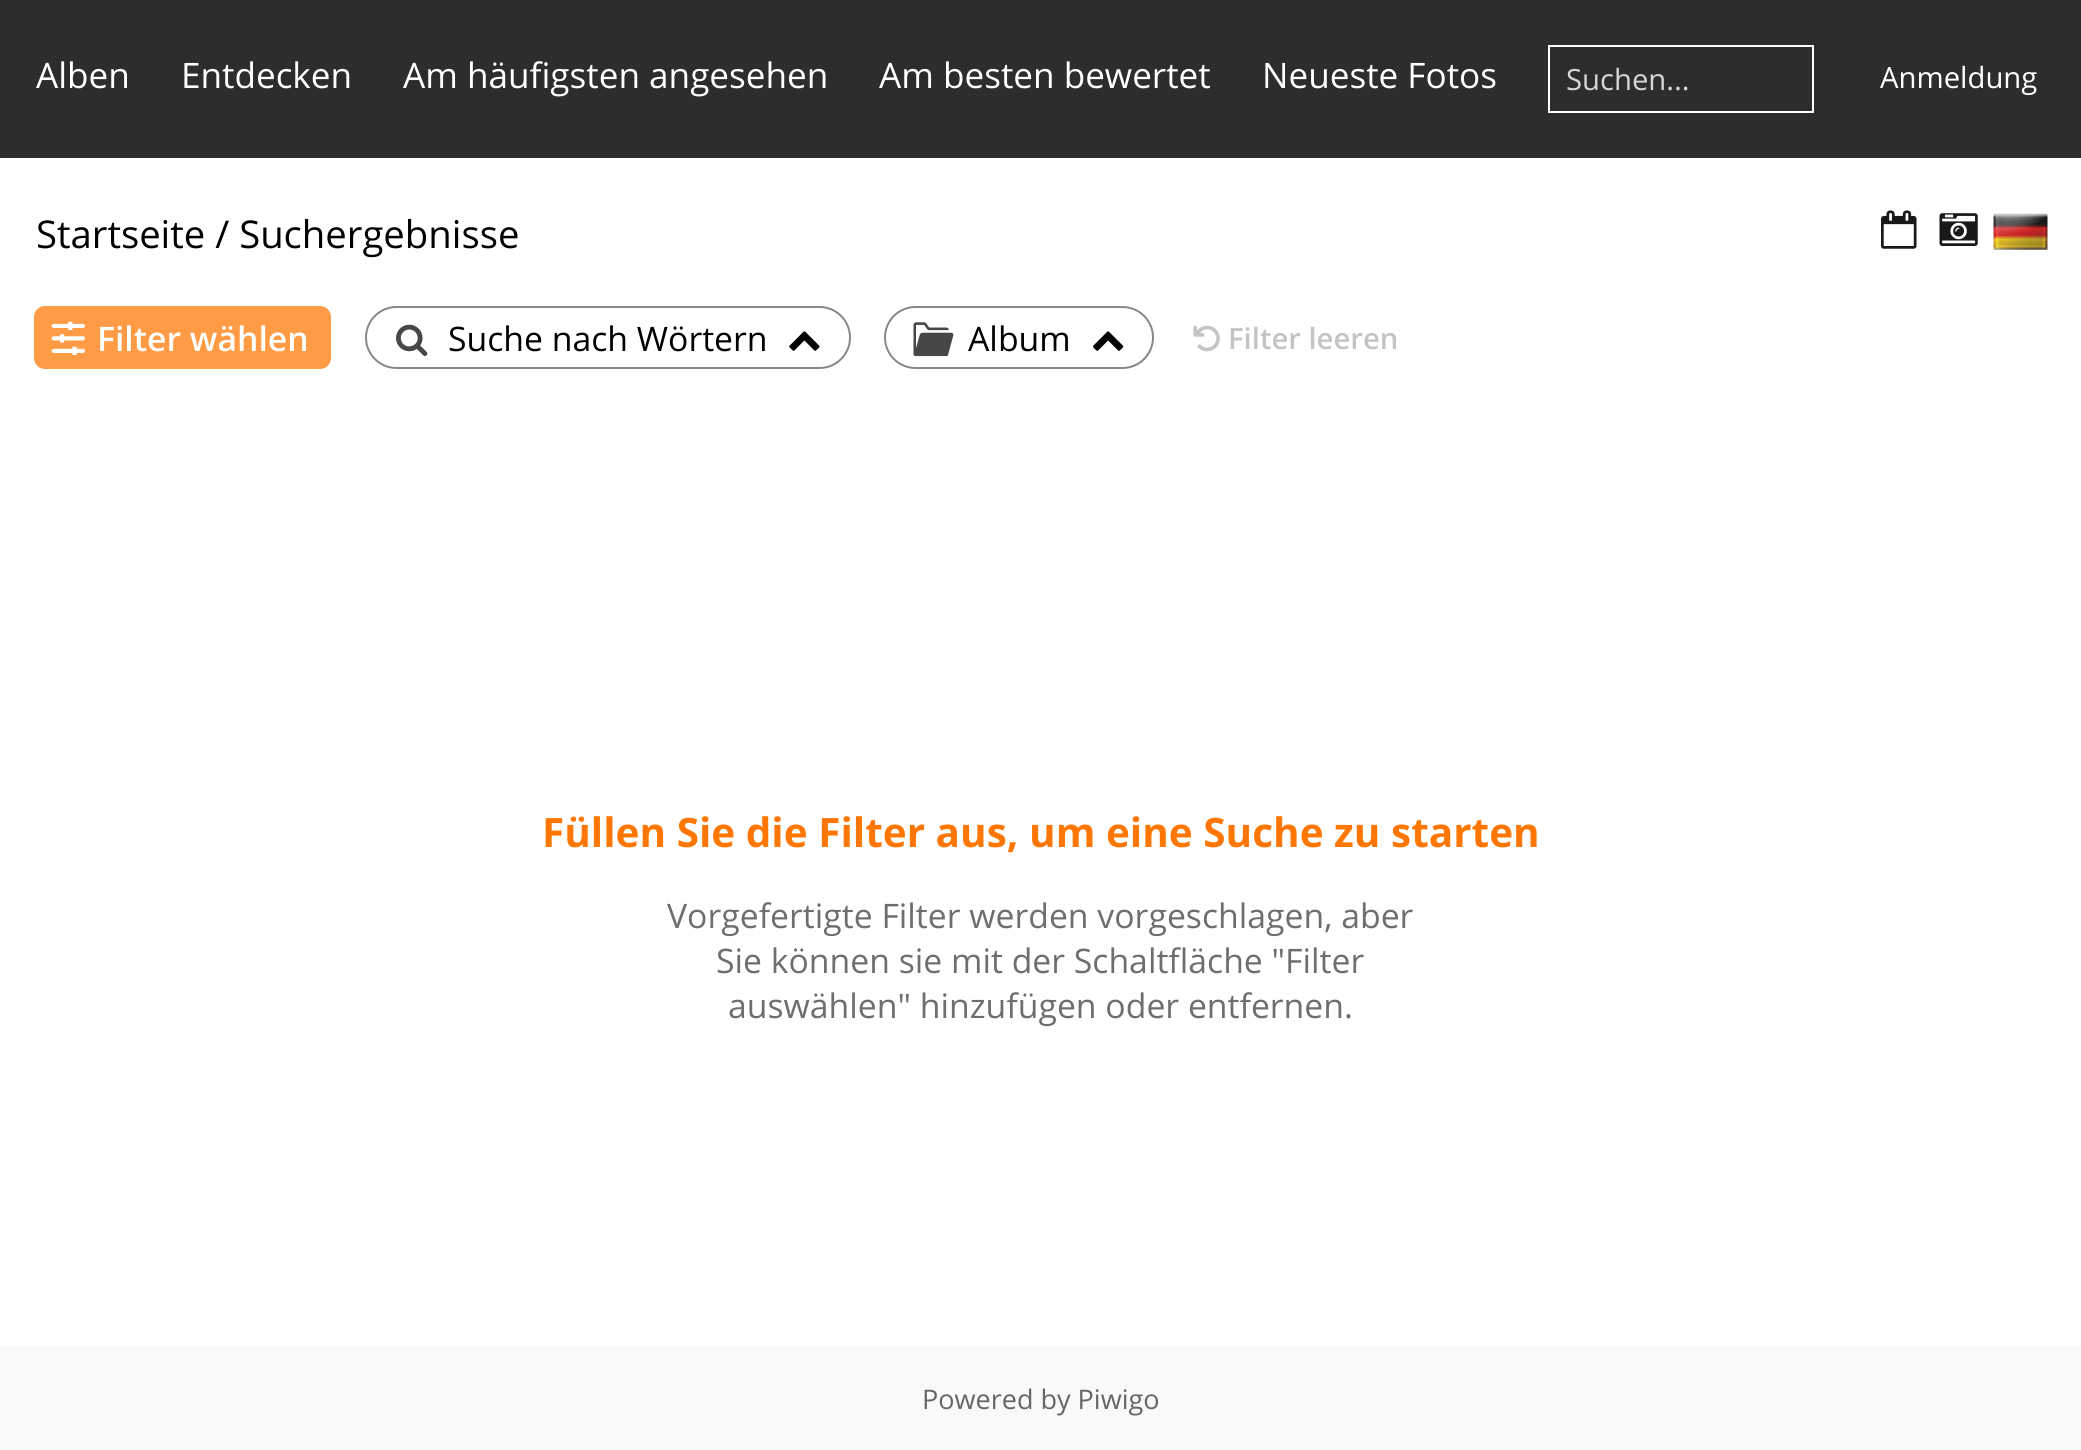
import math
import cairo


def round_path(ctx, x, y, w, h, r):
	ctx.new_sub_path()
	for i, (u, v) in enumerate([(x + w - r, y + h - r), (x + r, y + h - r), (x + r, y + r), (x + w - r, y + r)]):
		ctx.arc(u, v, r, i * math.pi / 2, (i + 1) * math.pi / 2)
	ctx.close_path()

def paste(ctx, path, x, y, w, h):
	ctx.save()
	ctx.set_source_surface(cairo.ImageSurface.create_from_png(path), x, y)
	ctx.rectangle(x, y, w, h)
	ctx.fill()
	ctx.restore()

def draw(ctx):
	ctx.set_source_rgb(1, 1, 1)
	ctx.paint()
	ctx.set_source_rgb(0.176, 0.176, 0.176)
	ctx.rectangle(0, 0, 2081, 158)
	ctx.fill()
	ctx.select_font_face('Open Sans')
	ctx.set_font_size(35.1)
	ctx.set_source_rgb(1, 1, 1)
	for x, y, s in [
		(36, 88, 'Alben'),
		(181, 88, 'Entdecken'),
		(403, 88, 'Am häufigsten angesehen'),
		(879, 88, 'Am besten bewertet'),
		(1262, 88, 'Neueste Fotos'),
	]:
		ctx.move_to(x, y)
		ctx.show_text(s)
	ctx.rectangle(1549, 46, 264, 66)
	ctx.stroke()
	ctx.set_font_size(29.25)
	ctx.set_source_rgb(0.839, 0.839, 0.839)
	ctx.move_to(1566, 90)
	ctx.show_text('Suchen...')
	ctx.set_source_rgb(1, 1, 1)
	ctx.move_to(1880, 88)
	ctx.show_text('Anmeldung')
	ctx.set_font_size(38.25)
	ctx.set_source_rgb(0, 0, 0)
	ctx.move_to(36, 248)
	ctx.show_text('Startseite / Suchergebnisse')
	paste(ctx, 'media/1.png', 1881, 210, 36, 39)
	paste(ctx, 'media/2.png', 1939, 213, 39, 33)
	paste(ctx, 'media/3.png', 1993, 213, 55, 37)
	ctx.set_source_rgb(1, 0.608, 0.267)
	round_path(ctx, 34, 306, 297, 63, 11)
	ctx.fill()
	paste(ctx, 'media/4.png', 51, 321, 34, 34)
	ctx.select_font_face('Open Sans SemiBold')
	ctx.set_font_size(33.75)
	ctx.set_source_rgb(1, 1, 1)
	ctx.move_to(97, 351)
	ctx.show_text('Filter wählen')
	round_path(ctx, 366, 307, 484, 61, 30.5)
	ctx.set_source_rgb(0.533, 0.533, 0.533)
	ctx.stroke()
	paste(ctx, 'media/5.png', 396, 324, 32, 32)
	ctx.select_font_face('Open Sans')
	ctx.set_source_rgb(0, 0, 0)
	ctx.move_to(448, 351)
	ctx.show_text('Suche nach Wörtern')
	paste(ctx, 'media/6.png', 789, 331, 31, 20)
	round_path(ctx, 885, 307, 268, 61, 30.5)
	ctx.set_source_rgb(0.533, 0.533, 0.533)
	ctx.stroke()
	paste(ctx, 'media/7.png', 913, 322, 41, 35)
	ctx.set_source_rgb(0, 0, 0)
	ctx.move_to(968, 351)
	ctx.show_text('Album')
	paste(ctx, 'media/8.png', 1093, 331, 31, 20)
	paste(ctx, 'media/9.png', 1193, 325, 27, 27)
	ctx.select_font_face('Open Sans SemiBold')
	ctx.set_font_size(29.25)
	ctx.set_source_rgb(0.769, 0.769, 0.769)
	ctx.move_to(1228, 349)
	ctx.show_text('Filter leeren')
	ctx.select_font_face('Open Sans', cairo.FONT_SLANT_NORMAL, cairo.FONT_WEIGHT_BOLD)
	ctx.set_font_size(40.5)
	ctx.set_source_rgb(1, 0.467, 0)
	ctx.move_to(542, 847)
	ctx.show_text('Füllen Sie die Filter aus, um eine Suche zu starten')
	ctx.select_font_face('Open Sans')
	ctx.set_font_size(33.75)
	ctx.set_source_rgb(0.431, 0.431, 0.431)
	for x, y, s in [
		(667, 928, 'Vorgefertigte Filter werden vorgeschlagen, aber'),
		(716, 973, 'Sie können sie mit der Schaltfläche "Filter'),
		(728, 1018, 'auswählen" hinzufügen oder entfernen.'),
	]:
		ctx.move_to(x, y)
		ctx.show_text(s)
	ctx.set_source_rgb(0.976, 0.976, 0.976)
	ctx.rectangle(0, 1346, 2081, 104)
	ctx.fill()
	ctx.set_font_size(27)
	ctx.set_source_rgb(0.4, 0.4, 0.4)
	ctx.move_to(922, 1409)
	ctx.show_text('Powered by Piwigo')


surface = cairo.ImageSurface(cairo.FORMAT_RGB24, 2081, 1450)
ctx = cairo.Context(surface)
options = cairo.FontOptions()
options.set_hint_metrics(cairo.HINT_METRICS_OFF)
options.set_hint_style(cairo.HINT_STYLE_NONE)
ctx.set_font_options(options)
ctx.set_miter_limit(4)
draw(ctx)
surface.write_to_png('image.png')
